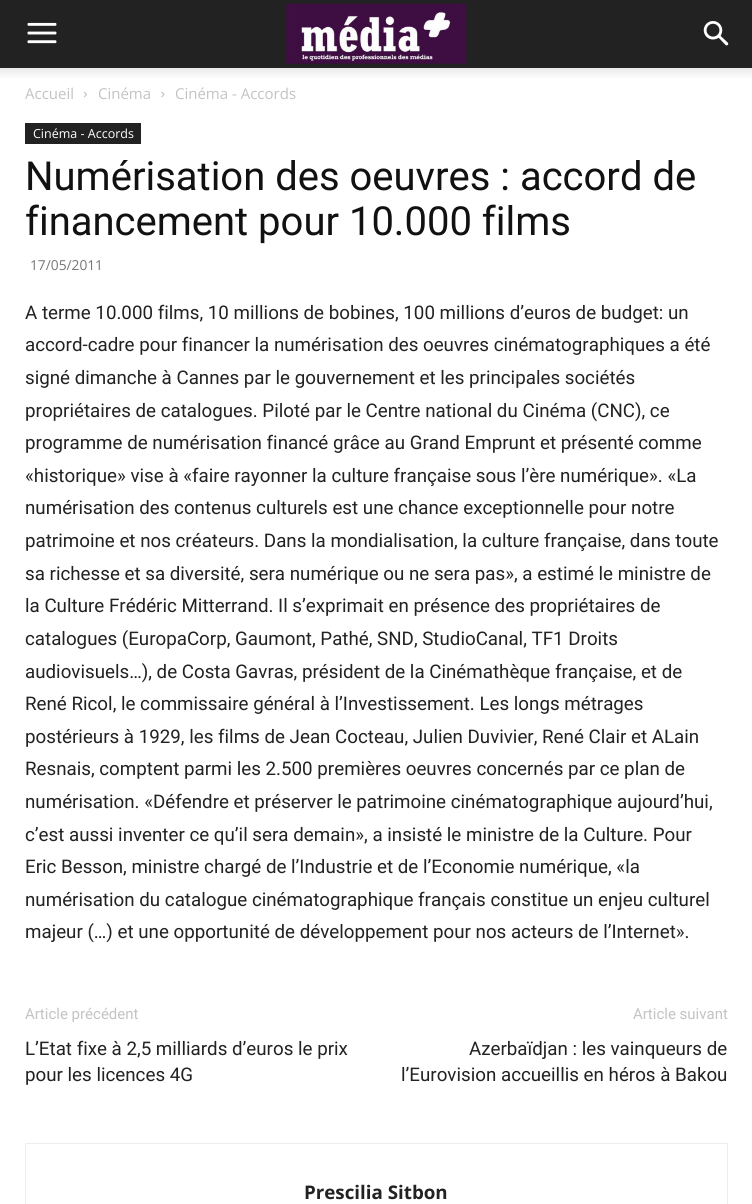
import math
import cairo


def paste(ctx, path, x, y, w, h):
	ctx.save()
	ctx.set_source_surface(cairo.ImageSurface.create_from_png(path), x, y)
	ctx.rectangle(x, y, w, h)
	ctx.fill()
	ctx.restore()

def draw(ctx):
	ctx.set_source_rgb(1, 1, 1)
	ctx.paint()
	ctx.set_source_rgb(0.133, 0.133, 0.133)
	ctx.rectangle(0, 0, 752, 68)
	ctx.fill()
	paste(ctx, 'media/1.png', 27, 22, 30, 22)
	paste(ctx, 'media/2.png', 286, 3, 181, 61)
	paste(ctx, 'media/3.png', 703, 21, 26, 25)
	paste(ctx, 'media/4.png', 0, 68, 752, 10)
	ctx.select_font_face('Open Sans')
	ctx.set_font_size(15)
	ctx.set_source_rgb(0.765, 0.765, 0.765)
	ctx.move_to(25, 99)
	ctx.show_text('Accueil')
	paste(ctx, 'media/5.png', 83, 91, 4, 7)
	ctx.move_to(98, 99)
	ctx.show_text('Cinéma')
	paste(ctx, 'media/6.png', 161, 91, 4, 7)
	ctx.move_to(175, 99)
	ctx.show_text('Cinéma - Accords')
	ctx.set_source_rgb(0.133, 0.133, 0.133)
	ctx.rectangle(25, 123, 116, 21)
	ctx.fill()
	ctx.set_font_size(12.5)
	ctx.set_source_rgb(1, 1, 1)
	ctx.move_to(33, 138)
	ctx.show_text('Cinéma - Accords')
	ctx.select_font_face('Roboto')
	ctx.set_font_size(40)
	ctx.set_source_rgb(0.067, 0.067, 0.067)
	ctx.move_to(25, 190)
	ctx.show_text('Numérisation des oeuvres : accord de')
	ctx.move_to(25, 235)
	ctx.show_text('financement pour 10.000 films')
	ctx.select_font_face('Open Sans')
	ctx.set_font_size(13.75)
	ctx.set_source_rgb(0.463, 0.463, 0.463)
	ctx.move_to(30, 270)
	ctx.show_text('17/05/2011')
	ctx.select_font_face('Roboto')
	ctx.set_font_size(18.75)
	ctx.set_source_rgb(0.133, 0.133, 0.133)
	for x, y, s in [
		(25, 319, 'A terme 10.000 films, 10 millions de bobines, 100 millions d’euros de budget: un'),
		(25, 351, 'accord-cadre pour financer la numérisation des oeuvres cinématographiques a été'),
		(25, 384, 'signé dimanche à Cannes par le gouvernement et les principales sociétés'),
		(25, 417, 'propriétaires de catalogues. Piloté par le Centre national du Cinéma (CNC), ce'),
		(25, 449, 'programme de numérisation financé grâce au Grand Emprunt et présenté comme'),
		(25, 482, '«historique» vise à «faire rayonner la culture française sous l’ère numérique». «La'),
		(25, 514, 'numérisation des contenus culturels est une chance exceptionnelle pour notre'),
		(25, 547, 'patrimoine et nos créateurs. Dans la mondialisation, la culture française, dans toute'),
		(25, 580, 'sa richesse et sa diversité, sera numérique ou ne sera pas», a estimé le ministre de'),
		(25, 612, 'la Culture Frédéric Mitterrand. Il s’exprimait en présence des propriétaires de'),
		(25, 645, 'catalogues (EuropaCorp, Gaumont, Pathé, SND, StudioCanal, TF1 Droits'),
		(25, 678, 'audiovisuels…), de Costa Gavras, président de la Cinémathèque française, et de'),
		(25, 710, 'René Ricol, le commissaire général à l’Investissement. Les longs métrages'),
		(25, 743, 'postérieurs à 1929, les films de Jean Cocteau, Julien Duvivier, René Clair et ALain'),
		(25, 775, 'Resnais, comptent parmi les 2.500 premières oeuvres concernés par ce plan de'),
		(25, 808, 'numérisation. «Défendre et préserver le patrimoine cinématographique aujourd’hui,'),
		(25, 841, 'c’est aussi inventer ce qu’il sera demain», a insisté le ministre de la Culture. Pour'),
		(25, 873, 'Eric Besson, ministre chargé de l’Industrie et de l’Economie numérique, «la'),
		(25, 906, 'numérisation du catalogue cinématographique français constitue un enjeu culturel'),
		(25, 938, 'majeur (…) et une opportunité de développement pour nos acteurs de l’Internet».'),
	]:
		ctx.move_to(x, y)
		ctx.show_text(s)
	ctx.set_font_size(15)
	ctx.set_source_rgb(0.765, 0.765, 0.765)
	ctx.move_to(25, 1019)
	ctx.show_text('Article précédent')
	ctx.set_font_size(18.75)
	ctx.set_source_rgb(0.133, 0.133, 0.133)
	ctx.move_to(25, 1055)
	ctx.show_text('L’Etat fixe à 2,5 milliards d’euros le prix')
	ctx.move_to(25, 1081)
	ctx.show_text('pour les licences 4G')
	ctx.set_font_size(15)
	ctx.set_source_rgb(0.765, 0.765, 0.765)
	ctx.move_to(633, 1019)
	ctx.show_text('Article suivant')
	ctx.set_font_size(18.75)
	ctx.set_source_rgb(0.133, 0.133, 0.133)
	ctx.move_to(469, 1055)
	ctx.show_text('Azerbaïdjan : les vainqueurs de')
	ctx.move_to(401, 1081)
	ctx.show_text('l’Eurovision accueillis en héros à Bakou')
	ctx.rectangle(25.5, 1143.5, 702, 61)
	ctx.set_source_rgb(0.929, 0.929, 0.929)
	ctx.set_line_width(1)
	ctx.stroke()
	ctx.select_font_face('Open Sans', cairo.FONT_SLANT_NORMAL, cairo.FONT_WEIGHT_BOLD)
	ctx.set_source_rgb(0.133, 0.133, 0.133)
	ctx.move_to(304, 1199)
	ctx.show_text('Prescilia Sitbon')


surface = cairo.ImageSurface(cairo.FORMAT_RGB24, 752, 1204)
ctx = cairo.Context(surface)
options = cairo.FontOptions()
options.set_hint_metrics(cairo.HINT_METRICS_OFF)
options.set_hint_style(cairo.HINT_STYLE_NONE)
ctx.set_font_options(options)
ctx.set_miter_limit(4)
draw(ctx)
surface.write_to_png('image.png')
